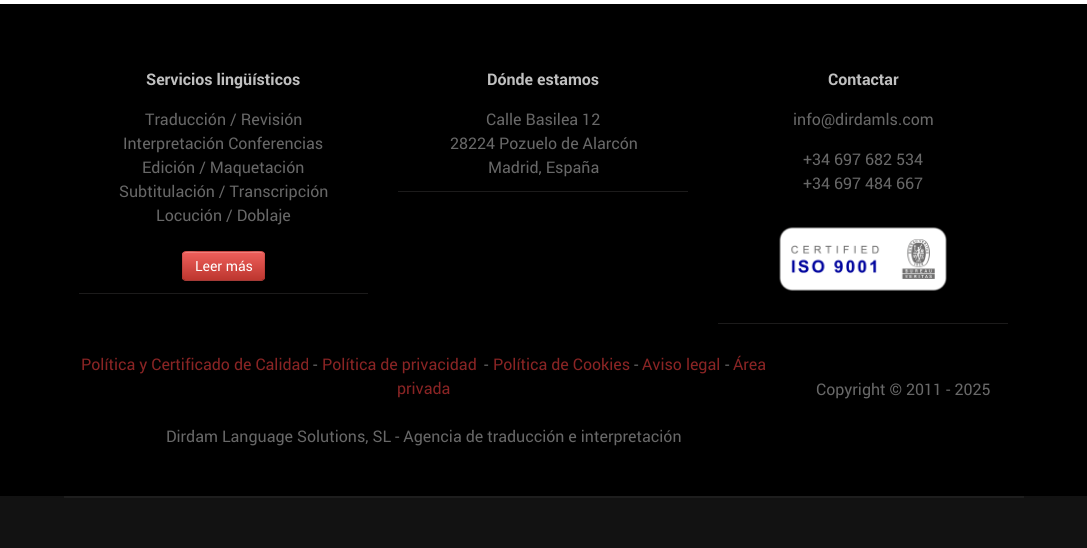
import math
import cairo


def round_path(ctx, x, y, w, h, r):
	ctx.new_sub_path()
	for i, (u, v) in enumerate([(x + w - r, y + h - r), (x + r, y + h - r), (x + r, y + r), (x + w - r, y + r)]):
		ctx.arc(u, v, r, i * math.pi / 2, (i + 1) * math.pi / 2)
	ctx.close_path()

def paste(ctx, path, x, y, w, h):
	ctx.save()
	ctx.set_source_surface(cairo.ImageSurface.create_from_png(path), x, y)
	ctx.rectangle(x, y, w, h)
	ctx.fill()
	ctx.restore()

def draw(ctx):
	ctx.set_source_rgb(1, 1, 1)
	ctx.paint()
	ctx.set_source_rgb(0, 0, 0)
	ctx.rectangle(0, 4, 1087, 492)
	ctx.fill()
	ctx.select_font_face('roboto', cairo.FONT_SLANT_NORMAL, cairo.FONT_WEIGHT_BOLD)
	ctx.set_font_size(16)
	ctx.set_source_rgb(0.753, 0.753, 0.753)
	ctx.move_to(146, 85)
	ctx.show_text('Servicios lingüísticos')
	ctx.select_font_face('roboto')
	ctx.set_source_rgb(0.408, 0.408, 0.408)
	for x, y, s in [
		(145, 125, 'Traducción / Revisión'),
		(123, 149, 'Interpretación Conferencias'),
		(142, 173, 'Edición / Maquetación'),
		(119, 197, 'Subtitulación / Transcripción'),
		(156, 221, 'Locución / Doblaje'),
	]:
		ctx.move_to(x, y)
		ctx.show_text(s)
	ctx.set_source_rgb(0.855, 0.31, 0.286)
	round_path(ctx, 182, 251, 83, 30, 4)
	ctx.fill()
	ctx.save()
	round_path(ctx, 182, 251, 83, 30, 4)
	ctx.clip()
	gradient = cairo.LinearGradient(224, 252, 224, 280)
	gradient.add_color_stop_rgba(0, 0.933, 0.373, 0.357, 1)
	gradient.add_color_stop_rgba(1, 0.741, 0.212, 0.184, 1)
	ctx.set_source(gradient)
	ctx.rectangle(182, 252, 83, 28)
	ctx.fill()
	ctx.restore()
	ctx.set_source_rgba(1, 1, 1, 0.2)
	ctx.new_path()
	ctx.move_to(186, 253)
	ctx.line_to(261, 253)
	ctx.curve_to(263, 253, 264, 254, 264, 256)
	ctx.curve_to(264, 249, 252, 252, 248, 252)
	ctx.line_to(198, 252)
	ctx.curve_to(195, 252, 183, 249, 183, 256)
	ctx.curve_to(183, 254, 184, 253, 186, 253)
	ctx.close_path()
	ctx.fill()
	ctx.new_path()
	ctx.move_to(263.5, 279.5)
	ctx.line_to(261.5, 280.5)
	ctx.line_to(185.5, 280.5)
	ctx.line_to(183.5, 279.5)
	ctx.set_source_rgba(0, 0, 0, 0.25)
	ctx.set_line_width(1)
	ctx.stroke()
	ctx.new_path()
	ctx.move_to(183.5, 279.5)
	ctx.curve_to(181.5, 277.5, 182.5, 269, 182.5, 266)
	ctx.curve_to(182.5, 249, 180.5, 251.5, 198.5, 251.5)
	ctx.line_to(248.5, 251.5)
	ctx.curve_to(266.5, 251.5, 264.5, 249, 264.5, 266)
	ctx.curve_to(264.5, 269, 265.5, 277.5, 263.5, 279.5)
	ctx.set_source_rgba(0, 0, 0, 0.1)
	ctx.stroke()
	ctx.set_font_size(14)
	ctx.set_source_rgb(1, 1, 1)
	ctx.move_to(195, 271)
	ctx.show_text('Leer más')
	ctx.set_source_rgb(0.11, 0.106, 0.106)
	ctx.rectangle(79, 293, 289, 1)
	ctx.fill()
	ctx.select_font_face('roboto', cairo.FONT_SLANT_NORMAL, cairo.FONT_WEIGHT_BOLD)
	ctx.set_font_size(16)
	ctx.set_source_rgb(0.753, 0.753, 0.753)
	ctx.move_to(487, 85)
	ctx.show_text('Dónde estamos')
	ctx.select_font_face('roboto')
	ctx.set_source_rgb(0.408, 0.408, 0.408)
	for x, y, s in [
		(486, 125, 'Calle Basilea 12'),
		(450, 149, '28224 Pozuelo de Alarcón'),
		(488, 173, 'Madrid, España'),
	]:
		ctx.move_to(x, y)
		ctx.show_text(s)
	ctx.set_source_rgb(0.11, 0.106, 0.106)
	ctx.rectangle(398, 191, 290, 1)
	ctx.fill()
	ctx.select_font_face('roboto', cairo.FONT_SLANT_NORMAL, cairo.FONT_WEIGHT_BOLD)
	ctx.set_source_rgb(0.753, 0.753, 0.753)
	ctx.move_to(828, 85)
	ctx.show_text('Contactar')
	ctx.select_font_face('roboto')
	ctx.set_source_rgb(0.408, 0.408, 0.408)
	for x, y, s in [
		(793, 125, 'info@dirdamls.com'),
		(803, 165, '+34 697 682 534'),
		(803, 189, '+34 697 484 667'),
	]:
		ctx.move_to(x, y)
		ctx.show_text(s)
	paste(ctx, 'media/1.png', 779, 227, 168, 64)
	ctx.set_source_rgb(0.11, 0.106, 0.106)
	ctx.rectangle(718, 323, 290, 1)
	ctx.fill()
	ctx.set_source_rgb(0.541, 0.141, 0.141)
	ctx.move_to(81, 370)
	ctx.show_text('Política y Certificado de Calidad')
	ctx.set_source_rgb(0.408, 0.408, 0.408)
	ctx.move_to(313, 370)
	ctx.show_text('-')
	ctx.set_source_rgb(0.541, 0.141, 0.141)
	ctx.move_to(322, 370)
	ctx.show_text('Política de privacidad')
	ctx.set_source_rgb(0.408, 0.408, 0.408)
	ctx.move_to(484, 370)
	ctx.show_text('-')
	ctx.set_source_rgb(0.541, 0.141, 0.141)
	ctx.move_to(493, 370)
	ctx.show_text('Política de Cookies')
	ctx.set_source_rgb(0.408, 0.408, 0.408)
	ctx.move_to(634, 370)
	ctx.show_text('-')
	ctx.set_source_rgb(0.541, 0.141, 0.141)
	ctx.move_to(642, 370)
	ctx.show_text('Aviso legal')
	ctx.set_source_rgb(0.408, 0.408, 0.408)
	ctx.move_to(725, 370)
	ctx.show_text('-')
	ctx.set_source_rgb(0.541, 0.141, 0.141)
	ctx.move_to(733, 370)
	ctx.show_text('Área')
	ctx.move_to(397, 394)
	ctx.show_text('privada')
	ctx.set_source_rgb(0.408, 0.408, 0.408)
	ctx.move_to(166, 442)
	ctx.show_text('Dirdam Language Solutions, SL - Agencia de traducción e interpretación')
	ctx.move_to(816, 395)
	ctx.show_text('Copyright © 2011 - 2025')
	ctx.set_source_rgb(0.071, 0.071, 0.071)
	ctx.rectangle(0, 496, 1087, 52)
	ctx.fill()
	ctx.set_source_rgb(0.118, 0.118, 0.118)
	ctx.rectangle(64, 496, 960, 2)
	ctx.fill()


surface = cairo.ImageSurface(cairo.FORMAT_RGB24, 1087, 548)
ctx = cairo.Context(surface)
options = cairo.FontOptions()
options.set_hint_metrics(cairo.HINT_METRICS_OFF)
options.set_hint_style(cairo.HINT_STYLE_NONE)
ctx.set_font_options(options)
ctx.set_miter_limit(4)
draw(ctx)
surface.write_to_png('image.png')
